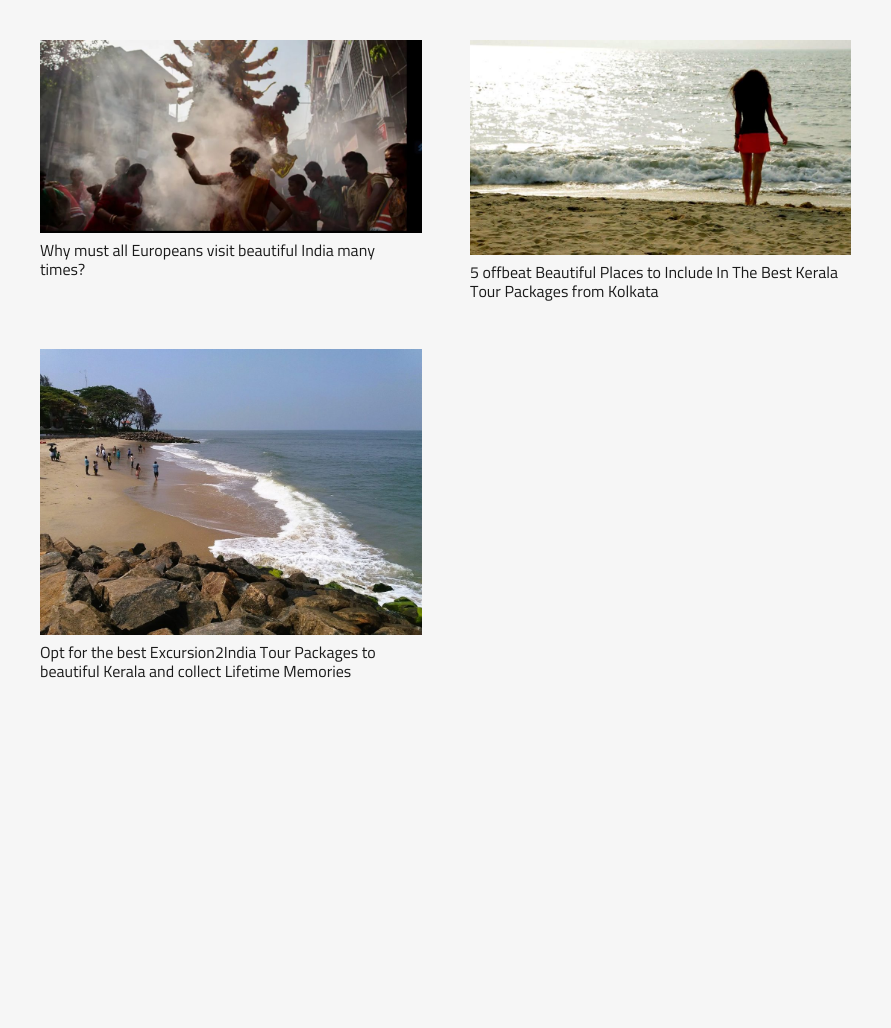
import math
import cairo


def paste(ctx, path, x, y, w, h):
	ctx.save()
	ctx.set_source_surface(cairo.ImageSurface.create_from_png(path), x, y)
	ctx.rectangle(x, y, w, h)
	ctx.fill()
	ctx.restore()

def draw(ctx):
	ctx.set_source_rgb(0.961, 0.961, 0.961)
	ctx.paint()
	paste(ctx, 'media/1.png', 40, 40, 382, 193)
	ctx.select_font_face('Titillium Web')
	ctx.set_font_size(16)
	ctx.set_source_rgb(0.102, 0.102, 0.102)
	ctx.move_to(40, 256)
	ctx.show_text('Why must all Europeans visit beautiful India many')
	ctx.move_to(40, 275)
	ctx.show_text('times?')
	paste(ctx, 'media/2.png', 470, 40, 381, 215)
	ctx.move_to(470, 278)
	ctx.show_text('5 offbeat Beautiful Places to Include In The Best Kerala')
	ctx.move_to(470, 297)
	ctx.show_text('Tour Packages from Kolkata')
	paste(ctx, 'media/3.png', 40, 349, 382, 286)
	ctx.move_to(40, 658)
	ctx.show_text('Opt for the best Excursion2India Tour Packages to')
	ctx.move_to(40, 677)
	ctx.show_text('beautiful Kerala and collect Lifetime Memories')


surface = cairo.ImageSurface(cairo.FORMAT_RGB24, 891, 1028)
ctx = cairo.Context(surface)
options = cairo.FontOptions()
options.set_hint_metrics(cairo.HINT_METRICS_OFF)
options.set_hint_style(cairo.HINT_STYLE_NONE)
ctx.set_font_options(options)
ctx.set_miter_limit(4)
draw(ctx)
surface.write_to_png('image.png')
